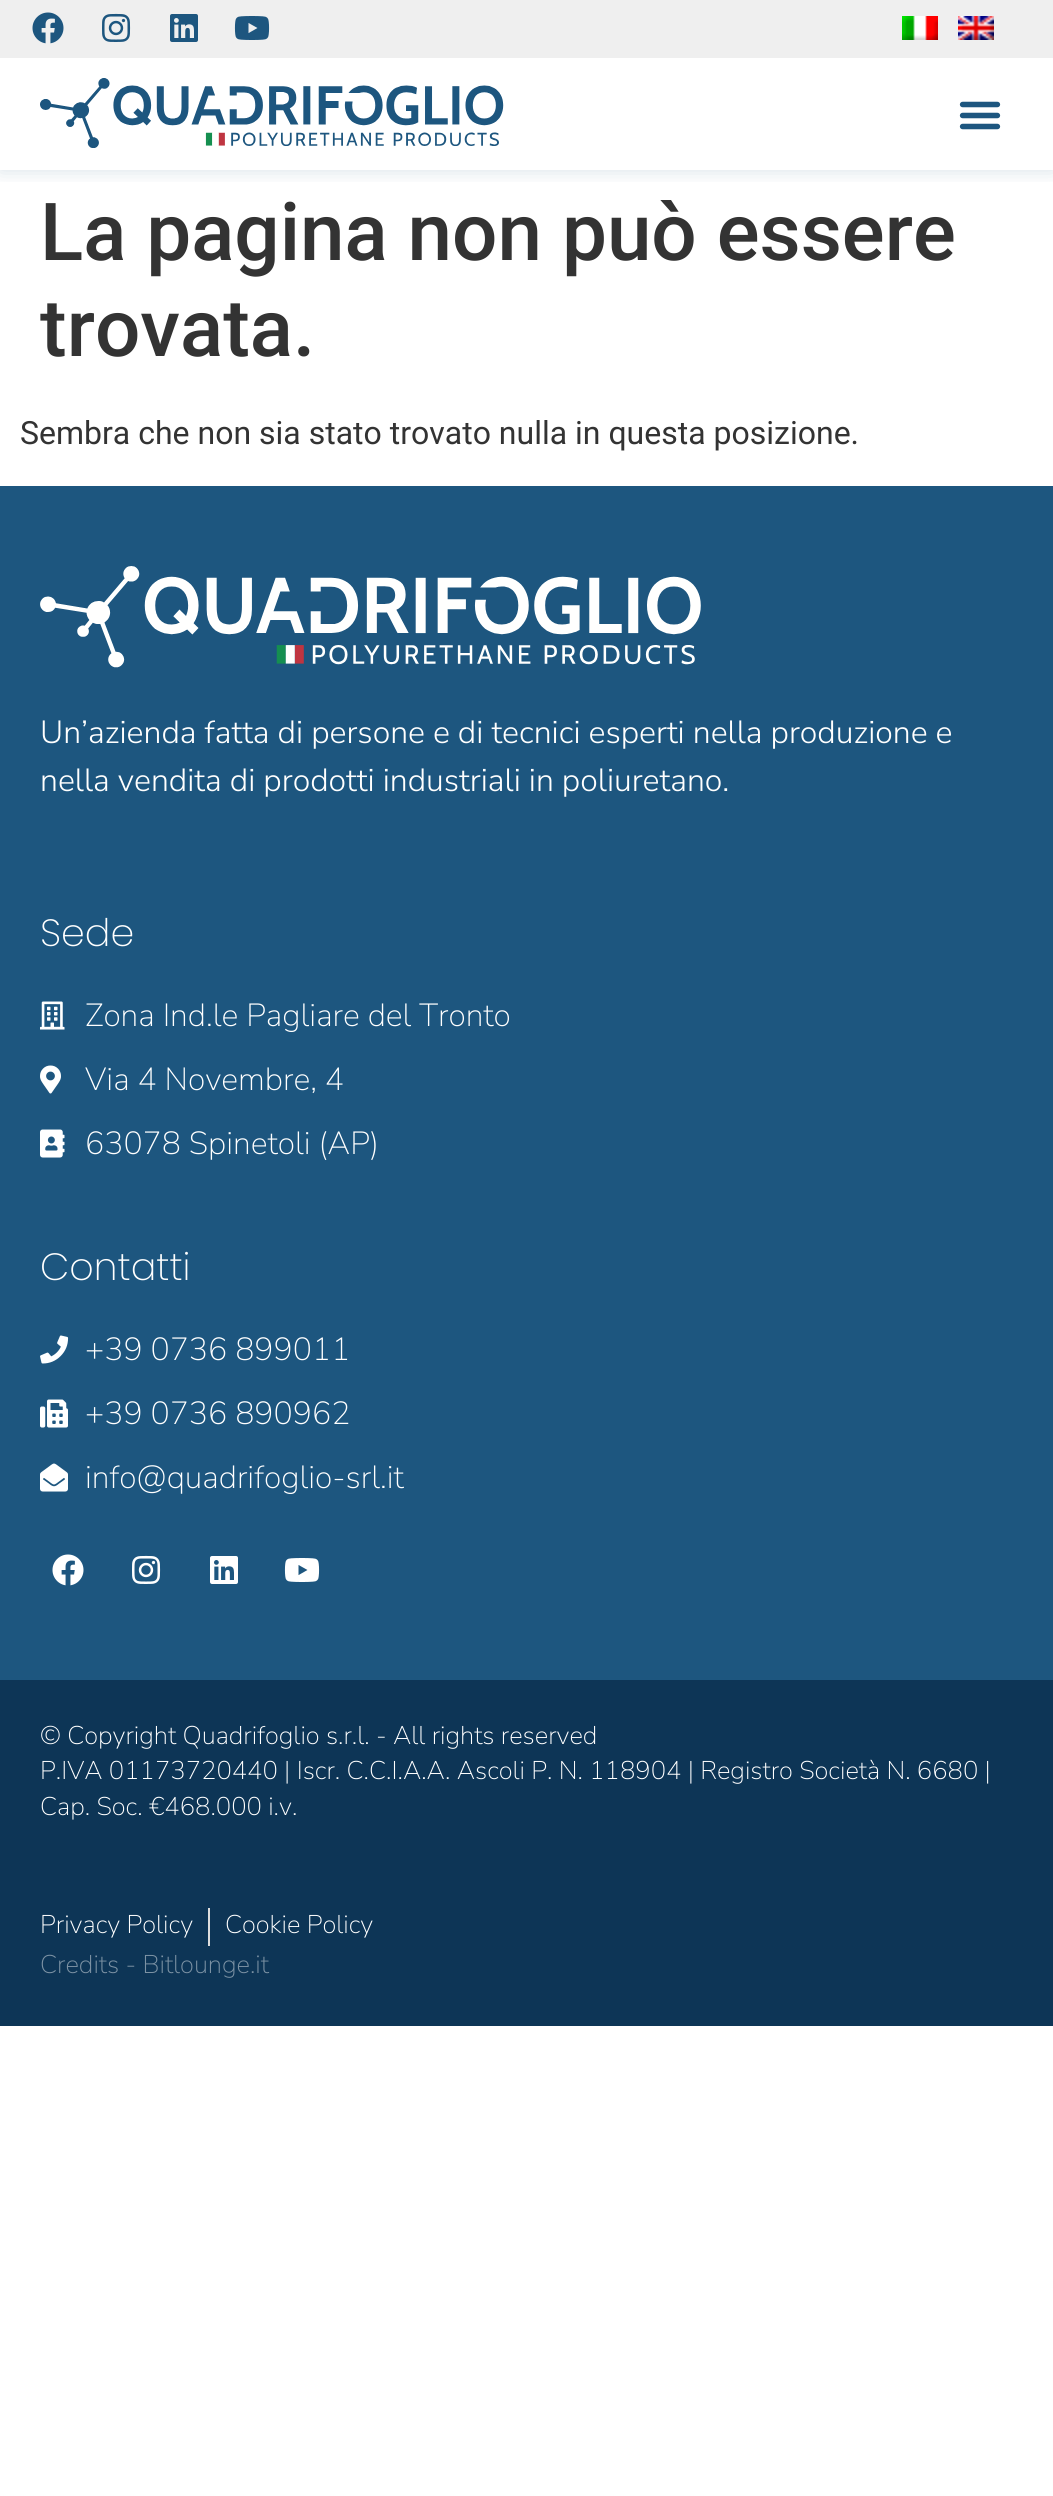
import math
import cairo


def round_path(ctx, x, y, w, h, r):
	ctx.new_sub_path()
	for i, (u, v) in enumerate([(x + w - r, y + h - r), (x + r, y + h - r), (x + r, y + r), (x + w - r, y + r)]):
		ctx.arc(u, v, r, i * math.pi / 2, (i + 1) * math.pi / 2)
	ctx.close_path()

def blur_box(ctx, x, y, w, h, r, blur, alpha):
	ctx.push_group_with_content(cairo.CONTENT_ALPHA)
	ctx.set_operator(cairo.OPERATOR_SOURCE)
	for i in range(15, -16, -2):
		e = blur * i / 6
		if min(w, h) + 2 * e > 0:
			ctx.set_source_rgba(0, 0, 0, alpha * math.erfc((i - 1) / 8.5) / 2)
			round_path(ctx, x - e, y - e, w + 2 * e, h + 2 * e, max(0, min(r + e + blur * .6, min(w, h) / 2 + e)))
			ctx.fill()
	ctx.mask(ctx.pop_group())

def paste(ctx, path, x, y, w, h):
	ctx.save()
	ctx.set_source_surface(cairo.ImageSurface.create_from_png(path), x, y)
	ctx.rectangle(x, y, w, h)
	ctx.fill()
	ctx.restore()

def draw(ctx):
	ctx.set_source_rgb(1, 1, 1)
	ctx.paint()
	ctx.save()
	ctx.rectangle(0, 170, 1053, 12)
	ctx.clip()
	ctx.set_source_rgb(0.114, 0.337, 0.498)
	blur_box(ctx, 0, 0, 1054, 170, 0, 10, 0.18)
	ctx.restore()
	ctx.set_source_rgb(0.937, 0.937, 0.937)
	ctx.rectangle(0, 0, 1053, 58)
	ctx.fill()
	paste(ctx, 'media/1.png', 32, 12, 32, 32)
	paste(ctx, 'media/2.png', 102, 13, 29, 29)
	paste(ctx, 'media/3.png', 170, 14, 28, 28)
	paste(ctx, 'media/4.png', 234, 16, 36, 24)
	paste(ctx, 'media/5.png', 902, 16, 36, 24)
	paste(ctx, 'media/6.png', 958, 16, 36, 24)
	paste(ctx, 'media/7.png', 40, 78, 464, 70)
	paste(ctx, 'media/8.png', 959, 101, 42, 29)
	ctx.select_font_face('Roboto Medium')
	ctx.set_font_size(80)
	ctx.set_source_rgb(0.2, 0.2, 0.2)
	ctx.move_to(40, 260)
	ctx.show_text('La pagina non può essere')
	ctx.move_to(40, 356)
	ctx.show_text('trovata.')
	ctx.select_font_face('Roboto')
	ctx.set_font_size(32)
	ctx.move_to(20, 444)
	ctx.show_text('Sembra che non sia stato trovato nulla in questa posizione.')
	ctx.set_source_rgb(0.114, 0.337, 0.498)
	ctx.rectangle(0, 486, 1053, 1194)
	ctx.fill()
	paste(ctx, 'media/9.png', 40, 566, 661, 102)
	ctx.select_font_face('Nunito Sans Light')
	ctx.set_source_rgb(1, 1, 1)
	ctx.move_to(40, 743)
	ctx.show_text('Un’azienda fatta di persone e di tecnici esperti nella produzione e')
	ctx.move_to(40, 791)
	ctx.show_text('nella vendita di prodotti industriali in poliuretano.')
	ctx.select_font_face('Poppins ExtraLight')
	ctx.set_font_size(38)
	ctx.move_to(40, 946)
	ctx.show_text('Sede')
	paste(ctx, 'media/10.png', 40, 1001, 25, 29)
	ctx.select_font_face('Nunito Sans ExtraLight')
	ctx.set_font_size(32)
	ctx.move_to(85, 1026)
	ctx.show_text('Zona Ind.le Pagliare del Tronto')
	paste(ctx, 'media/11.png', 40, 1065, 21, 29)
	ctx.move_to(85, 1090)
	ctx.show_text('Via 4 Novembre, 4')
	paste(ctx, 'media/12.png', 40, 1129, 25, 29)
	ctx.move_to(85, 1154)
	ctx.show_text('63078 Spinetoli (AP)')
	ctx.select_font_face('Poppins ExtraLight')
	ctx.set_font_size(38)
	ctx.move_to(40, 1280)
	ctx.show_text('Contatti')
	paste(ctx, 'media/13.png', 40, 1335, 29, 29)
	ctx.select_font_face('Nunito Sans ExtraLight')
	ctx.set_font_size(32)
	ctx.move_to(85, 1360)
	ctx.show_text('+39 0736 899011')
	paste(ctx, 'media/14.png', 40, 1399, 28, 29)
	ctx.move_to(85, 1424)
	ctx.show_text('+39 0736 890962')
	paste(ctx, 'media/15.png', 40, 1463, 28, 29)
	ctx.move_to(85, 1488)
	ctx.show_text('info@quadrifoglio-srl.it')
	paste(ctx, 'media/16.png', 52, 1554, 32, 32)
	paste(ctx, 'media/17.png', 132, 1555, 29, 29)
	paste(ctx, 'media/18.png', 210, 1556, 28, 28)
	paste(ctx, 'media/19.png', 284, 1558, 36, 24)
	ctx.set_source_rgb(0.051, 0.208, 0.337)
	ctx.rectangle(0, 1680, 1053, 346)
	ctx.fill()
	ctx.set_font_size(25.6)
	ctx.set_source_rgb(1, 1, 1)
	for x, y, s in [
		(40, 1744, '© Copyright Quadrifoglio s.r.l. - All rights reserved'),
		(40, 1779, 'P.IVA 01173720440 | Iscr. C.C.I.A.A. Ascoli P. N. 118904 | Registro Società N. 6680 |'),
		(40, 1815, 'Cap. Soc. €468.000 i.v.'),
		(40, 1933, 'Privacy Policy'),
	]:
		ctx.move_to(x, y)
		ctx.show_text(s)
	ctx.set_source_rgb(0.867, 0.867, 0.867)
	ctx.rectangle(208, 1908, 2, 38)
	ctx.fill()
	ctx.set_source_rgb(1, 1, 1)
	ctx.move_to(225, 1933)
	ctx.show_text('Cookie Policy')
	ctx.set_source_rgb(0.486, 0.573, 0.643)
	ctx.move_to(40, 1973)
	ctx.show_text('Credits - Bitlounge.it')


surface = cairo.ImageSurface(cairo.FORMAT_RGB24, 1053, 2496)
ctx = cairo.Context(surface)
options = cairo.FontOptions()
options.set_hint_metrics(cairo.HINT_METRICS_OFF)
options.set_hint_style(cairo.HINT_STYLE_NONE)
ctx.set_font_options(options)
ctx.set_miter_limit(4)
draw(ctx)
surface.write_to_png('image.png')
